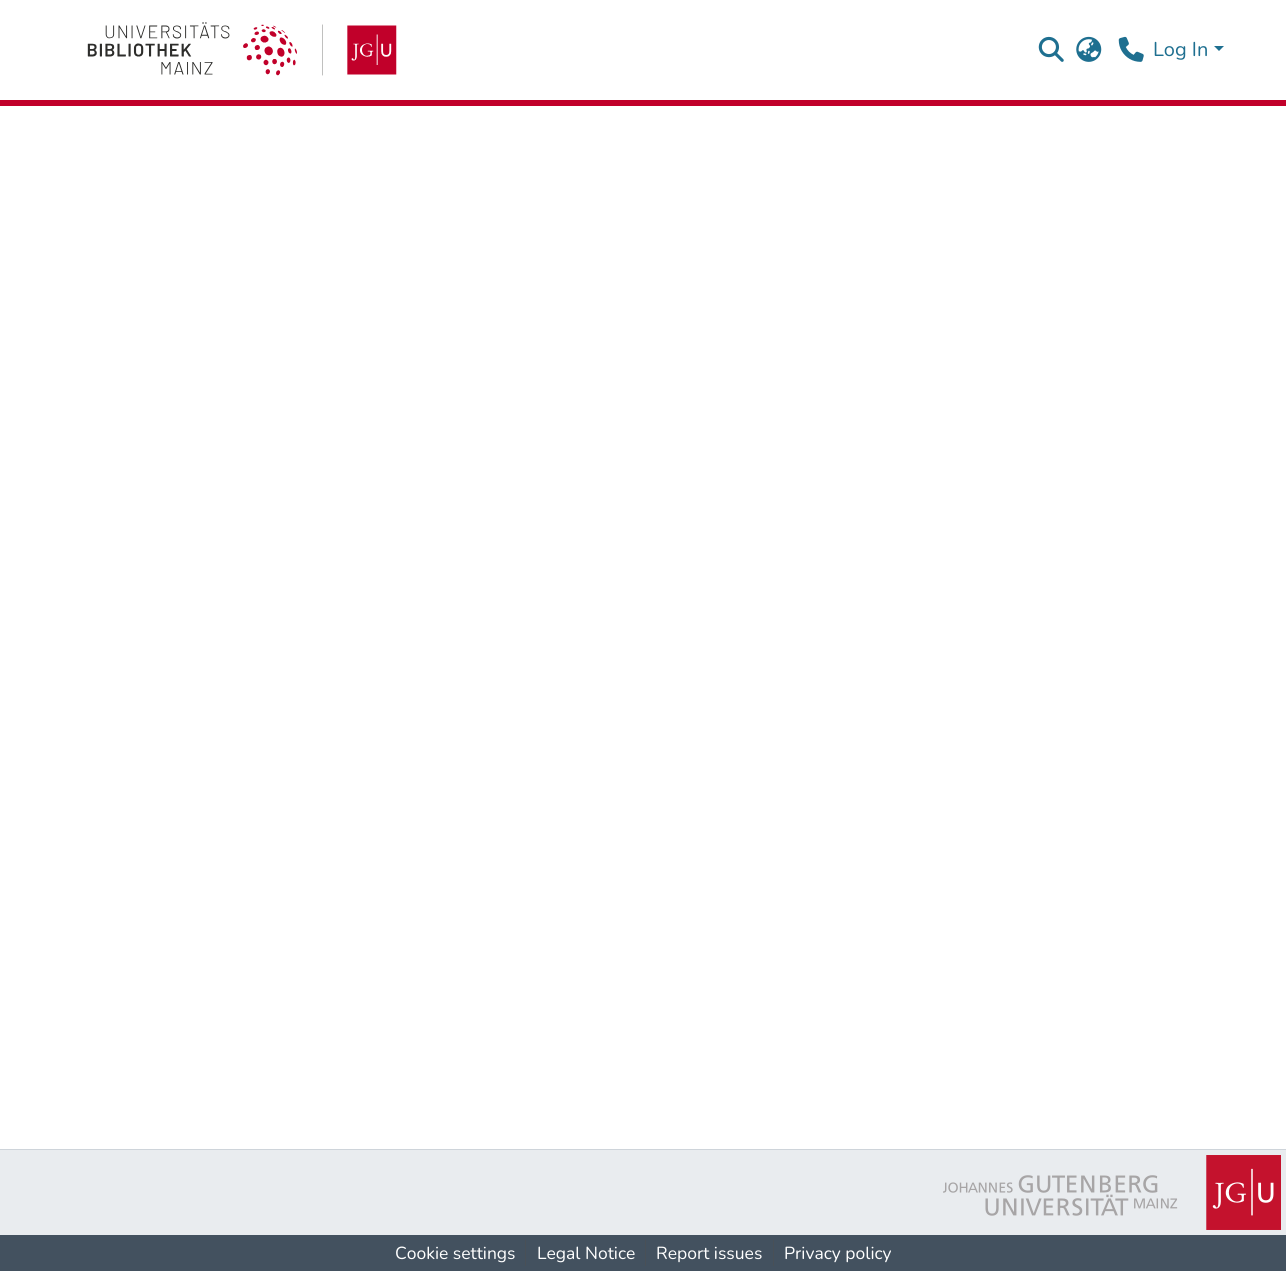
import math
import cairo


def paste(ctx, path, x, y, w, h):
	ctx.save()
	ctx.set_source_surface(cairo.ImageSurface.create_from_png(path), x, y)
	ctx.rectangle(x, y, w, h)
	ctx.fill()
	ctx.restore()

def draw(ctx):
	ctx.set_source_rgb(1, 1, 1)
	ctx.paint()
	ctx.set_source_rgb(0.757, 0, 0.165)
	ctx.rectangle(0, 100, 1286, 6)
	ctx.fill()
	paste(ctx, 'media/1.png', 87, 22, 310, 54)
	paste(ctx, 'media/2.png', 1038, 36, 26, 26)
	paste(ctx, 'media/3.png', 1076, 36, 26, 26)
	paste(ctx, 'media/4.png', 1118, 36, 26, 26)
	ctx.select_font_face('Nunito ExtraLight')
	ctx.set_font_size(20)
	ctx.set_source_rgb(0.118, 0.435, 0.565)
	ctx.move_to(1153, 56)
	ctx.show_text('Log In')
	ctx.new_path()
	ctx.move_to(1214, 46)
	ctx.line_to(1224, 46)
	ctx.line_to(1219, 51)
	ctx.close_path()
	ctx.fill()
	ctx.set_source_rgb(0.263, 0.318, 0.373)
	ctx.rectangle(0, 1235, 1286, 36)
	ctx.fill()
	ctx.set_source_rgb(0.808, 0.831, 0.855)
	ctx.rectangle(0, 1149, 1286, 1)
	ctx.fill()
	ctx.set_source_rgb(0.914, 0.925, 0.937)
	ctx.rectangle(0, 1150, 1286, 85)
	ctx.fill()
	paste(ctx, 'media/5.png', 943, 1155, 338, 75)
	ctx.set_font_size(17.5)
	ctx.set_source_rgb(1, 1, 1)
	ctx.move_to(395, 1259)
	ctx.show_text('Cookie settings')
	ctx.set_source_rgb(0.286, 0.314, 0.341)
	ctx.rectangle(525, 1240, 1, 26)
	ctx.fill()
	ctx.set_source_rgb(1, 1, 1)
	ctx.move_to(537, 1259)
	ctx.show_text('Legal Notice')
	ctx.set_source_rgb(0.286, 0.314, 0.341)
	ctx.rectangle(645, 1240, 1, 26)
	ctx.fill()
	ctx.set_source_rgb(1, 1, 1)
	ctx.move_to(656, 1259)
	ctx.show_text('Report issues')
	ctx.set_source_rgb(0.286, 0.314, 0.341)
	ctx.rectangle(773, 1240, 1, 26)
	ctx.fill()
	ctx.set_source_rgb(1, 1, 1)
	ctx.move_to(784, 1259)
	ctx.show_text('Privacy policy')


surface = cairo.ImageSurface(cairo.FORMAT_RGB24, 1286, 1271)
ctx = cairo.Context(surface)
options = cairo.FontOptions()
options.set_hint_metrics(cairo.HINT_METRICS_OFF)
options.set_hint_style(cairo.HINT_STYLE_NONE)
ctx.set_font_options(options)
ctx.set_miter_limit(4)
draw(ctx)
surface.write_to_png('image.png')
